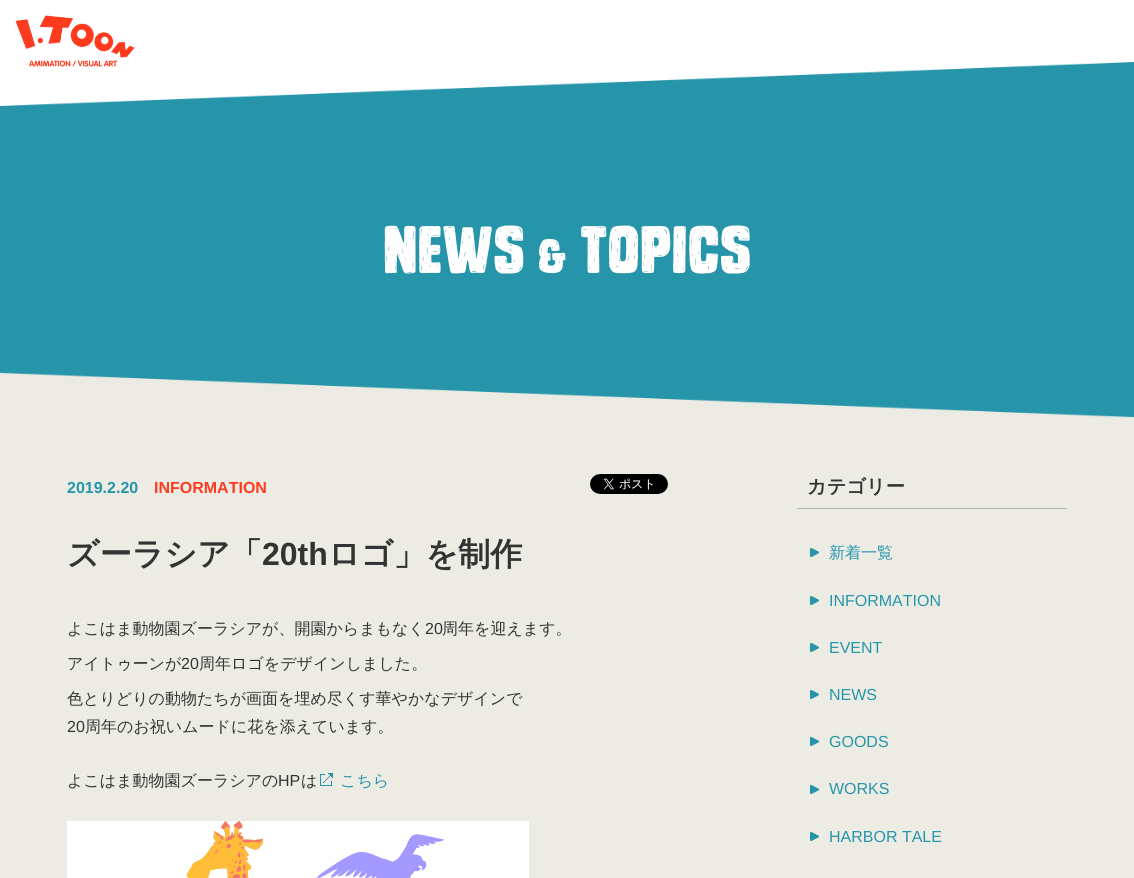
import math
import cairo


def paste(ctx, path, x, y, w, h):
	ctx.save()
	ctx.set_source_surface(cairo.ImageSurface.create_from_png(path), x, y)
	ctx.rectangle(x, y, w, h)
	ctx.fill()
	ctx.restore()

def draw(ctx):
	ctx.set_source_rgb(0.922, 0.922, 0.894)
	ctx.paint()
	ctx.set_source_rgb(1, 1, 1)
	ctx.rectangle(0, 0, 1134, 62)
	ctx.fill()
	ctx.set_source_rgb(0.149, 0.584, 0.663)
	ctx.rectangle(0, 62, 1134, 356)
	ctx.fill()
	paste(ctx, 'media/2.png', 0, 62, 1133, 44)
	paste(ctx, 'media/1.png', 15, 15, 120, 52)
	paste(ctx, 'media/3.png', 0, 372, 1134, 46)
	ctx.select_font_face('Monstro')
	ctx.set_font_size(64)
	ctx.set_source_rgb(1, 1, 1)
	ctx.move_to(383, 273)
	ctx.show_text('NEWS')
	ctx.set_font_size(45)
	ctx.move_to(538, 273)
	ctx.show_text('&')
	ctx.set_font_size(64)
	ctx.move_to(580, 273)
	ctx.show_text('TOPICS')
	ctx.select_font_face('Liberation Sans', cairo.FONT_SLANT_NORMAL, cairo.FONT_WEIGHT_BOLD)
	ctx.set_font_size(16)
	ctx.set_source_rgb(0.149, 0.584, 0.663)
	ctx.move_to(67, 493)
	ctx.show_text('2019.2.20')
	ctx.set_source_rgb(1, 0.231, 0.122)
	ctx.move_to(154, 493)
	ctx.show_text('INFORMATION')
	paste(ctx, 'media/4.png', 590, 474, 78, 20)
	ctx.select_font_face('WenQuanYi Zen Hei', cairo.FONT_SLANT_NORMAL, cairo.FONT_WEIGHT_BOLD)
	ctx.set_font_size(32)
	ctx.set_source_rgb(0.2, 0.2, 0.2)
	ctx.move_to(67, 565)
	ctx.show_text('ズーラシア「')
	ctx.select_font_face('Liberation Sans', cairo.FONT_SLANT_NORMAL, cairo.FONT_WEIGHT_BOLD)
	ctx.move_to(262, 565)
	ctx.show_text('20th')
	ctx.select_font_face('WenQuanYi Zen Hei', cairo.FONT_SLANT_NORMAL, cairo.FONT_WEIGHT_BOLD)
	ctx.move_to(328, 565)
	ctx.show_text('ロゴ」を制作')
	ctx.select_font_face('WenQuanYi Zen Hei Medium')
	ctx.set_font_size(16)
	ctx.move_to(67, 634)
	ctx.show_text('よこはま動物園ズーラシアが、開園からまもなく')
	ctx.select_font_face('Liberation Sans')
	ctx.move_to(425, 634)
	ctx.show_text('20')
	ctx.select_font_face('WenQuanYi Zen Hei Medium')
	ctx.move_to(442, 634)
	ctx.show_text('周年を迎えます。')
	ctx.move_to(67, 669)
	ctx.show_text('アイトゥーンが')
	ctx.select_font_face('Liberation Sans')
	ctx.move_to(181, 669)
	ctx.show_text('20')
	ctx.select_font_face('WenQuanYi Zen Hei Medium')
	ctx.move_to(199, 669)
	ctx.show_text('周年ロゴをデザインしました。')
	ctx.move_to(67, 704)
	ctx.show_text('色とりどりの動物たちが画面を埋め尽くす華やかなデザインで')
	ctx.select_font_face('Liberation Sans')
	ctx.move_to(67, 732)
	ctx.show_text('20')
	ctx.select_font_face('WenQuanYi Zen Hei Medium')
	ctx.move_to(85, 732)
	ctx.show_text('周年のお祝いムードに花を添えています。')
	ctx.move_to(67, 786)
	ctx.show_text('よこはま動物園ズーラシアの')
	ctx.select_font_face('Liberation Sans')
	ctx.move_to(278, 786)
	ctx.show_text('HP')
	ctx.select_font_face('WenQuanYi Zen Hei Medium')
	ctx.move_to(301, 786)
	ctx.show_text('は')
	paste(ctx, 'media/5.png', 320, 773, 13, 13)
	ctx.set_source_rgb(0.149, 0.584, 0.663)
	ctx.move_to(340, 786)
	ctx.show_text('こちら')
	paste(ctx, 'media/6.png', 67, 821, 462, 57)
	ctx.set_source_rgb(0.702, 0.702, 0.702)
	ctx.rectangle(797, 508, 270, 1)
	ctx.fill()
	ctx.select_font_face('WenQuanYi Zen Hei', cairo.FONT_SLANT_NORMAL, cairo.FONT_WEIGHT_BOLD)
	ctx.set_font_size(19.25)
	ctx.set_source_rgb(0.2, 0.2, 0.2)
	ctx.move_to(807, 493)
	ctx.show_text('カテゴリー')
	paste(ctx, 'media/7.png', 810, 548, 9, 9)
	ctx.select_font_face('WenQuanYi Zen Hei Medium')
	ctx.set_font_size(16)
	ctx.set_source_rgb(0.149, 0.584, 0.663)
	ctx.move_to(829, 558)
	ctx.show_text('新着一覧')
	paste(ctx, 'media/7.png', 810, 596, 9, 9)
	ctx.select_font_face('Liberation Sans')
	ctx.move_to(829, 606)
	ctx.show_text('INFORMATION')
	paste(ctx, 'media/7.png', 810, 643, 9, 9)
	ctx.move_to(829, 653)
	ctx.show_text('EVENT')
	paste(ctx, 'media/7.png', 810, 690, 9, 9)
	ctx.move_to(829, 700)
	ctx.show_text('NEWS')
	paste(ctx, 'media/7.png', 810, 737, 9, 9)
	ctx.move_to(829, 747)
	ctx.show_text('GOODS')
	paste(ctx, 'media/7.png', 810, 785, 9, 9)
	ctx.move_to(829, 794)
	ctx.show_text('WORKS')
	paste(ctx, 'media/7.png', 810, 832, 9, 9)
	ctx.move_to(829, 842)
	ctx.show_text('HARBOR TALE')


surface = cairo.ImageSurface(cairo.FORMAT_RGB24, 1134, 878)
ctx = cairo.Context(surface)
options = cairo.FontOptions()
options.set_hint_metrics(cairo.HINT_METRICS_OFF)
options.set_hint_style(cairo.HINT_STYLE_NONE)
ctx.set_font_options(options)
ctx.set_miter_limit(4)
draw(ctx)
surface.write_to_png('image.png')
